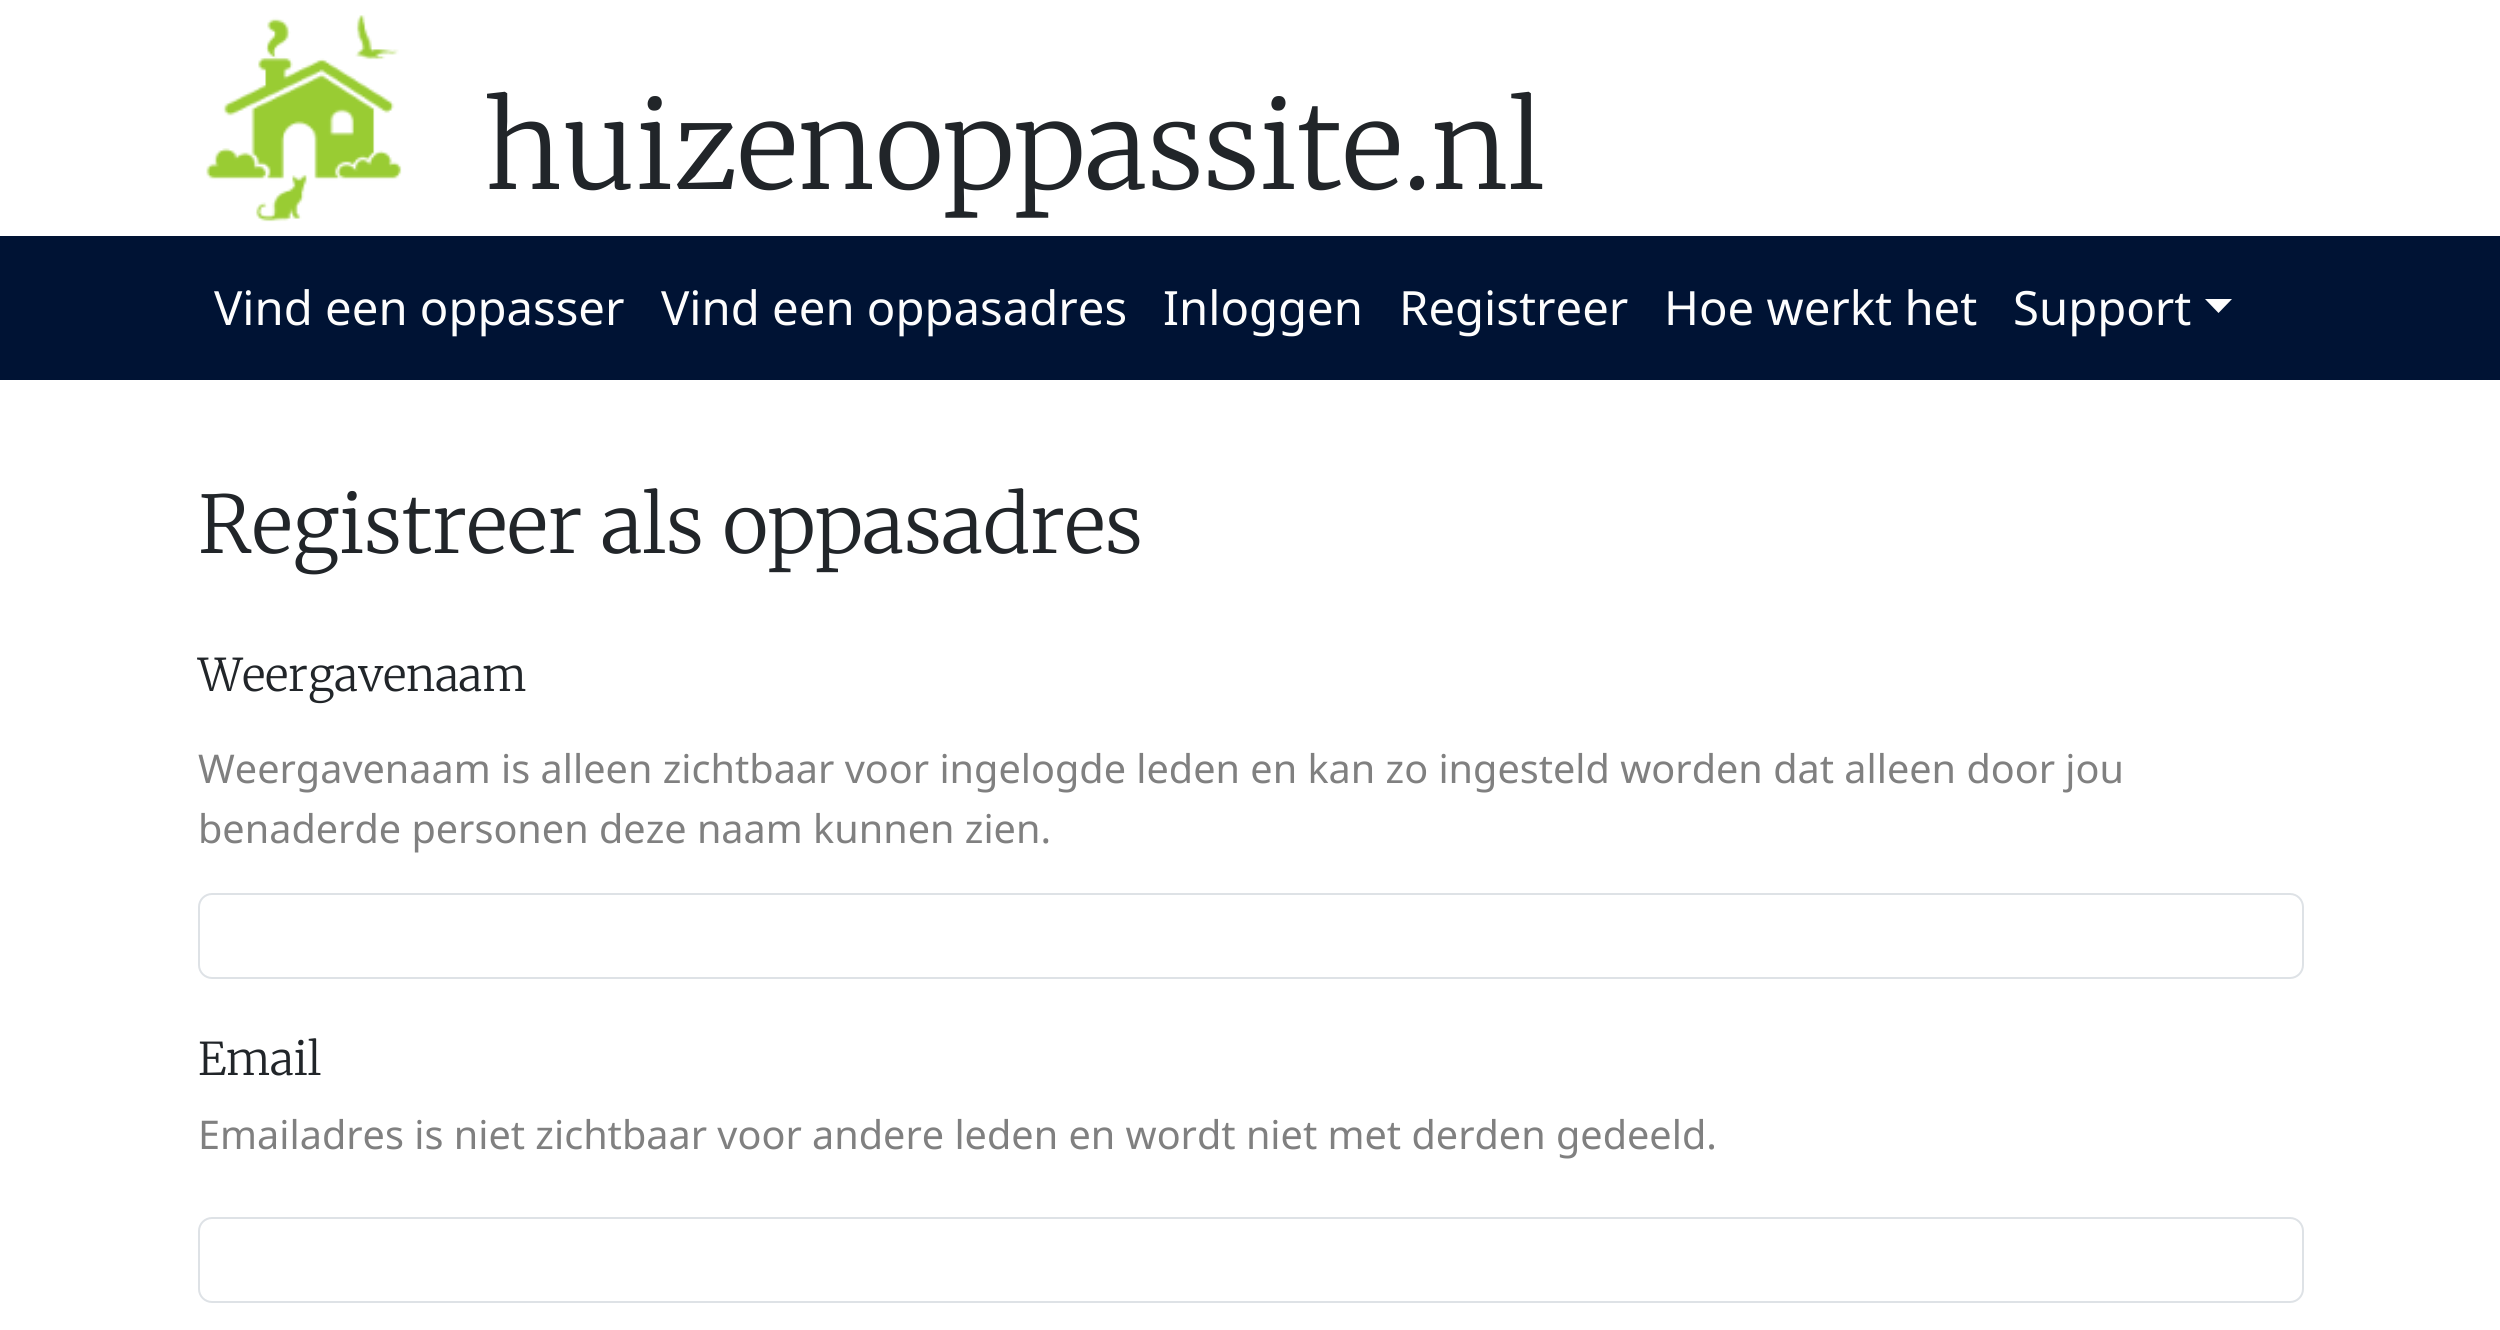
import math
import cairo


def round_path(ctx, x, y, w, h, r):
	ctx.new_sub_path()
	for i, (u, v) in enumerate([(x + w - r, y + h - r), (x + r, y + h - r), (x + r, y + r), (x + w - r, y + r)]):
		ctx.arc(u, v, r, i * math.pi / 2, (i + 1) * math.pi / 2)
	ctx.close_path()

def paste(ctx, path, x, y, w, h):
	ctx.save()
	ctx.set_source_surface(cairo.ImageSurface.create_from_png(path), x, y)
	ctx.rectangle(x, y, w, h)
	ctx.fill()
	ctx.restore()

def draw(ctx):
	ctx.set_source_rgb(1, 1, 1)
	ctx.paint()
	paste(ctx, 'media/1.png', 206, 15, 196, 207)
	ctx.select_font_face('Merriweather Light')
	ctx.set_font_size(118.75)
	ctx.set_source_rgb(0.129, 0.145, 0.161)
	ctx.move_to(484, 189)
	ctx.show_text('huizenoppassite.nl')
	ctx.set_source_rgb(0, 0.078, 0.204)
	ctx.rectangle(0, 236, 2500, 144)
	ctx.fill()
	ctx.select_font_face('Noto Sans')
	ctx.set_font_size(47.25)
	ctx.set_source_rgb(0.992, 0.992, 0.992)
	for x, y, s in [
		(214, 325, 'Vind een oppasser'),
		(661, 325, 'Vind een oppasadres'),
		(1163, 325, 'Inloggen'),
		(1399, 325, 'Registreer'),
		(1664, 325, 'Hoe werkt het'),
		(2013, 325, 'Support'),
	]:
		ctx.move_to(x, y)
		ctx.show_text(s)
	ctx.new_path()
	ctx.move_to(2205, 299)
	ctx.line_to(2232, 299)
	ctx.line_to(2218.5, 313)
	ctx.close_path()
	ctx.fill()
	ctx.select_font_face('Merriweather Light')
	ctx.set_font_size(79.25)
	ctx.set_source_rgb(0.129, 0.145, 0.161)
	ctx.move_to(198, 553)
	ctx.show_text('Registreer als oppasadres')
	ctx.set_font_size(45)
	ctx.move_to(198, 691)
	ctx.show_text('Weergavenaam')
	ctx.select_font_face('Noto Sans')
	ctx.set_font_size(39.6)
	ctx.set_source_rgb(0.502, 0.502, 0.502)
	ctx.move_to(198, 783)
	ctx.show_text('Weergavenaam is alleen zichtbaar voor ingelogde leden en kan zo ingesteld worden dat alleen door jou')
	ctx.move_to(198, 843)
	ctx.show_text('benaderde personen deze naam kunnen zien.')
	round_path(ctx, 199, 894, 2104, 84, 13)
	ctx.set_source_rgb(0.871, 0.886, 0.902)
	ctx.stroke()
	ctx.select_font_face('Merriweather Light')
	ctx.set_font_size(45)
	ctx.set_source_rgb(0.129, 0.145, 0.161)
	ctx.move_to(198, 1075)
	ctx.show_text('Email')
	ctx.select_font_face('Noto Sans')
	ctx.set_font_size(39.6)
	ctx.set_source_rgb(0.502, 0.502, 0.502)
	ctx.move_to(198, 1149)
	ctx.show_text('Emailadres is niet zichtbaar voor andere leden en wordt niet met derden gedeeld.')
	round_path(ctx, 199, 1218, 2104, 84, 13)
	ctx.set_source_rgb(0.871, 0.886, 0.902)
	ctx.stroke()


surface = cairo.ImageSurface(cairo.FORMAT_RGB24, 2500, 1330)
ctx = cairo.Context(surface)
options = cairo.FontOptions()
options.set_hint_metrics(cairo.HINT_METRICS_OFF)
options.set_hint_style(cairo.HINT_STYLE_NONE)
ctx.set_font_options(options)
ctx.set_miter_limit(4)
draw(ctx)
surface.write_to_png('image.png')
